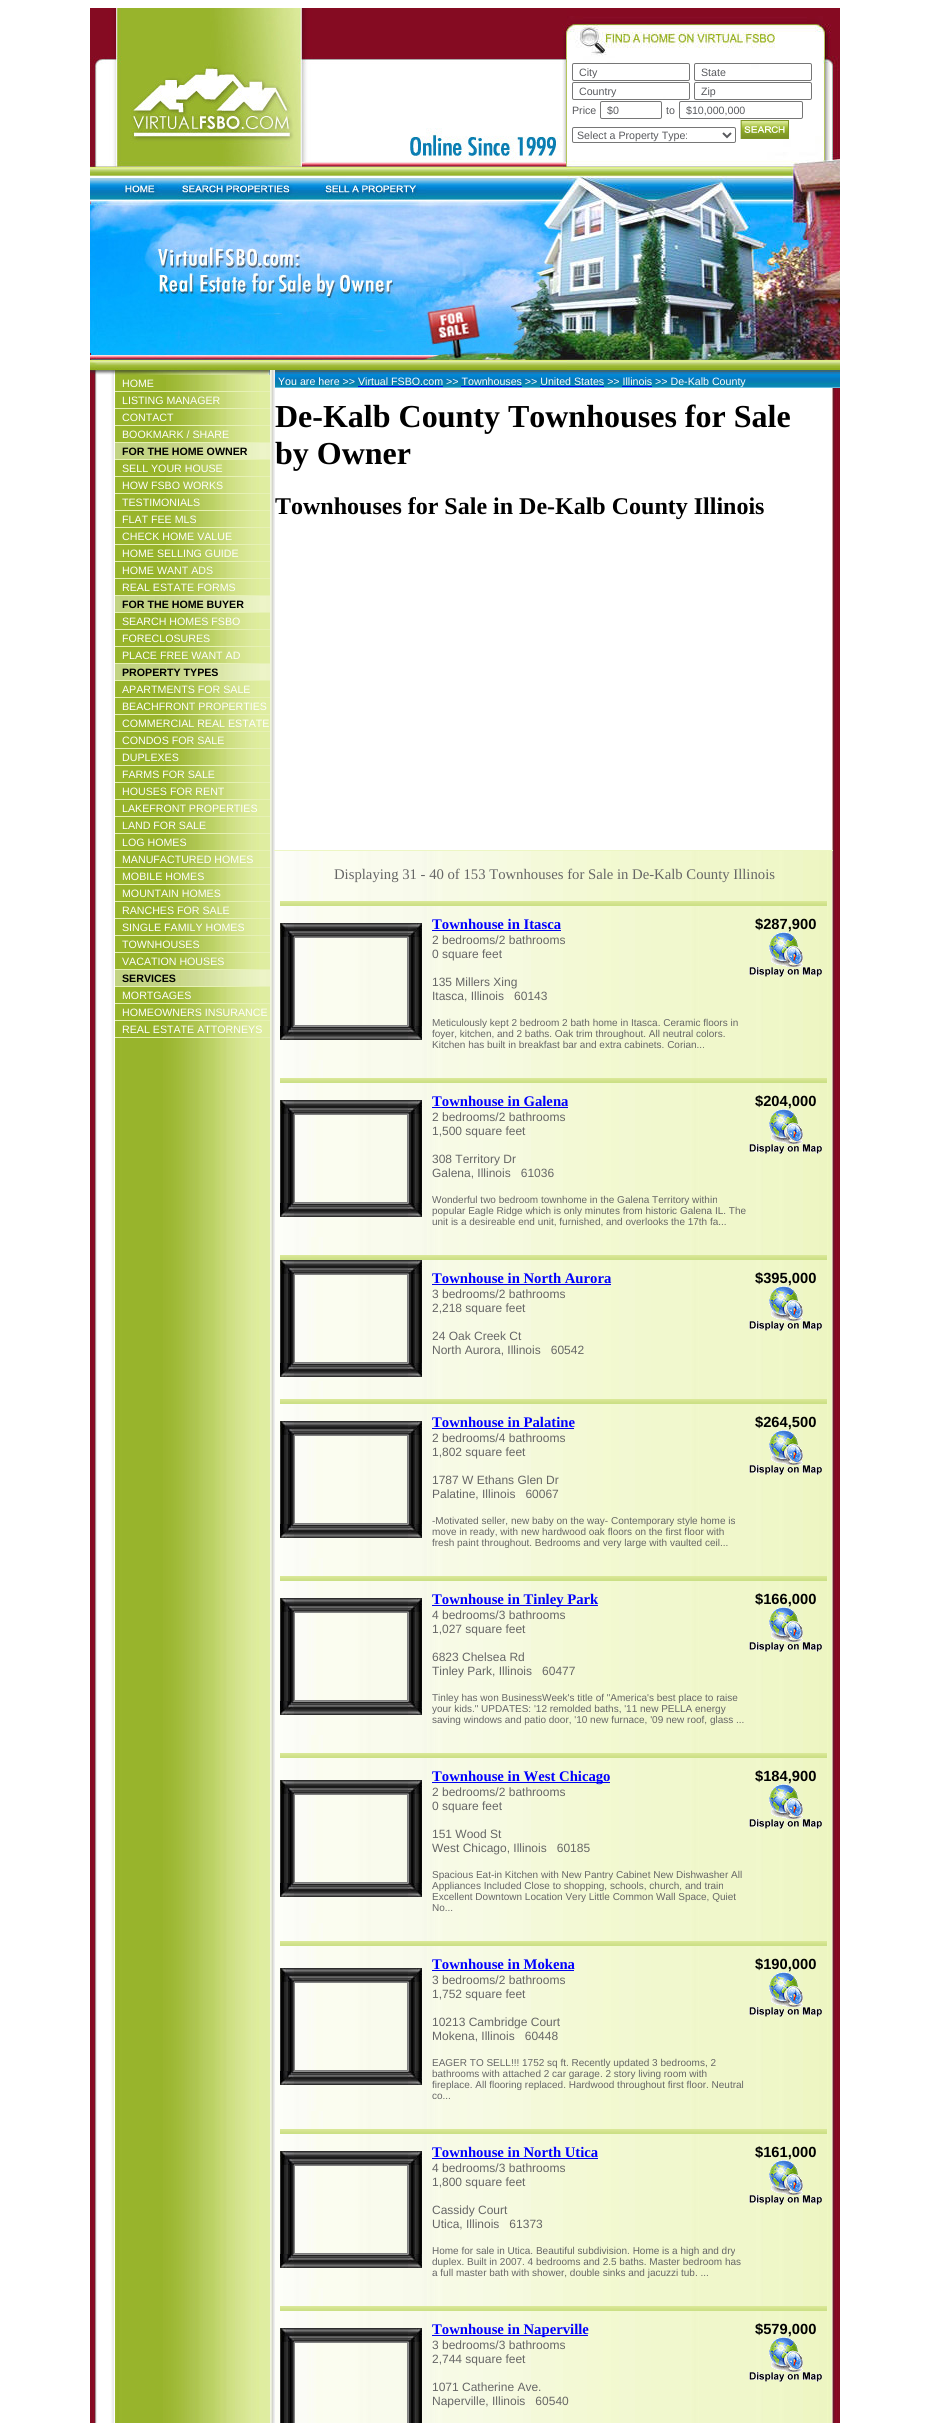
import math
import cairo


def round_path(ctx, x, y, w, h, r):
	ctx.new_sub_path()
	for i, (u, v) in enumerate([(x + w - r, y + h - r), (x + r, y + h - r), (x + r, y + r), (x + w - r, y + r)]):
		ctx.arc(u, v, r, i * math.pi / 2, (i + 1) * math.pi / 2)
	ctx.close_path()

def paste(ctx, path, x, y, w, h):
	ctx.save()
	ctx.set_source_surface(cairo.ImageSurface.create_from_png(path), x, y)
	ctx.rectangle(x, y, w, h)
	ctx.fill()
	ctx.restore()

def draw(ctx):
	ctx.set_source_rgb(1, 1, 1)
	ctx.paint()
	paste(ctx, 'media/1.png', 90, 8, 477, 362)
	paste(ctx, 'media/2.png', 567, 8, 273, 362)
	ctx.set_source_rgb(1, 1, 1)
	round_path(ctx, 572.5, 63.5, 117, 17, 1.5)
	ctx.fill_preserve()
	ctx.set_source_rgb(0.463, 0.463, 0.463)
	ctx.set_line_width(1)
	ctx.stroke()
	ctx.select_font_face('Liberation Sans')
	ctx.set_font_size(10.65)
	ctx.set_source_rgb(0.345, 0.349, 0.365)
	ctx.move_to(579, 76)
	ctx.show_text('City')
	round_path(ctx, 694.5, 63.5, 117, 17, 1.5)
	ctx.set_source_rgb(0.463, 0.463, 0.463)
	ctx.stroke()
	ctx.set_source_rgb(0.345, 0.349, 0.365)
	ctx.move_to(701, 76)
	ctx.show_text('State')
	round_path(ctx, 572.5, 82.5, 117, 17, 1.5)
	ctx.set_source_rgb(0.463, 0.463, 0.463)
	ctx.stroke()
	ctx.set_source_rgb(0.345, 0.349, 0.365)
	ctx.move_to(579, 95)
	ctx.show_text('Country')
	round_path(ctx, 694.5, 82.5, 117, 17, 1.5)
	ctx.set_source_rgb(0.463, 0.463, 0.463)
	ctx.stroke()
	ctx.set_source_rgb(0.345, 0.349, 0.365)
	ctx.move_to(701, 95)
	ctx.show_text('Zip')
	ctx.move_to(572, 114)
	ctx.show_text('Price')
	round_path(ctx, 600.5, 101.5, 61, 17, 1.5)
	ctx.set_source_rgb(0.463, 0.463, 0.463)
	ctx.stroke()
	ctx.set_source_rgb(0.345, 0.349, 0.365)
	ctx.move_to(607, 114)
	ctx.show_text('$0')
	ctx.move_to(666, 114)
	ctx.show_text('to')
	round_path(ctx, 679.5, 101.5, 123, 17, 1.5)
	ctx.set_source_rgb(0.463, 0.463, 0.463)
	ctx.stroke()
	ctx.set_source_rgb(0.345, 0.349, 0.365)
	ctx.move_to(686, 114)
	ctx.show_text('$10,000,000')
	round_path(ctx, 572.5, 127.5, 163, 15, 1.5)
	ctx.set_source_rgb(0.463, 0.463, 0.463)
	ctx.stroke()
	ctx.new_path()
	ctx.move_to(723, 133)
	ctx.line_to(727, 137)
	ctx.line_to(731, 133)
	ctx.set_source_rgb(0.345, 0.349, 0.365)
	ctx.set_line_width(2)
	ctx.stroke()
	ctx.move_to(577, 139)
	ctx.show_text('Select a Property Type:')
	paste(ctx, 'media/3.png', 740, 120, 49, 19)
	paste(ctx, 'media/4.png', 90, 375, 24, 2048)
	paste(ctx, 'media/5.png', 90, 370, 25, 5)
	paste(ctx, 'media/8.png', 115, 375, 155, 2048)
	ctx.set_source_rgb(0.902, 0.945, 0.71)
	ctx.rectangle(115, 391, 156, 1)
	ctx.rectangle(115, 408, 156, 1)
	ctx.rectangle(115, 425, 156, 1)
	ctx.rectangle(115, 442, 156, 1)
	ctx.rectangle(115, 459, 156, 1)
	ctx.rectangle(115, 476, 156, 1)
	ctx.rectangle(115, 493, 156, 1)
	ctx.rectangle(115, 510, 156, 1)
	ctx.rectangle(115, 527, 156, 1)
	ctx.rectangle(115, 544, 156, 1)
	ctx.rectangle(115, 561, 156, 1)
	ctx.rectangle(115, 578, 156, 1)
	ctx.rectangle(115, 595, 156, 1)
	ctx.rectangle(115, 612, 156, 1)
	ctx.rectangle(115, 629, 156, 1)
	ctx.rectangle(115, 646, 156, 1)
	ctx.rectangle(115, 663, 156, 1)
	ctx.rectangle(115, 680, 156, 1)
	ctx.rectangle(115, 697, 156, 1)
	ctx.rectangle(115, 714, 156, 1)
	ctx.rectangle(115, 731, 156, 1)
	ctx.rectangle(115, 748, 156, 1)
	ctx.rectangle(115, 765, 156, 1)
	ctx.rectangle(115, 782, 156, 1)
	ctx.rectangle(115, 799, 156, 1)
	ctx.rectangle(115, 816, 156, 1)
	ctx.rectangle(115, 833, 156, 1)
	ctx.rectangle(115, 850, 156, 1)
	ctx.rectangle(115, 867, 156, 1)
	ctx.rectangle(115, 884, 156, 1)
	ctx.rectangle(115, 901, 156, 1)
	ctx.rectangle(115, 918, 156, 1)
	ctx.rectangle(115, 935, 156, 1)
	ctx.rectangle(115, 952, 156, 1)
	ctx.rectangle(115, 969, 156, 1)
	ctx.rectangle(115, 986, 156, 1)
	ctx.rectangle(115, 1003, 156, 1)
	ctx.rectangle(115, 1020, 156, 1)
	ctx.rectangle(115, 1037, 156, 1)
	ctx.fill()
	paste(ctx, 'media/6.png', 270, 370, 5, 2053)
	paste(ctx, 'media/7.png', 275, 370, 565, 5)
	paste(ctx, 'media/9.png', 115, 370, 155, 5)
	ctx.set_source_rgb(0.596, 0.706, 0.173)
	ctx.rectangle(163, 377, 3, 14)
	ctx.fill()
	paste(ctx, 'media/10.png', 166, 377, 104, 14)
	ctx.set_source_rgb(1, 1, 1)
	ctx.move_to(122, 387)
	ctx.show_text('HOME')
	ctx.set_source_rgb(0.596, 0.706, 0.173)
	ctx.rectangle(163, 392, 3, 16)
	ctx.fill()
	paste(ctx, 'media/11.png', 166, 392, 104, 16)
	ctx.set_source_rgb(1, 1, 1)
	ctx.move_to(122, 404)
	ctx.show_text('LISTING MANAGER')
	ctx.set_source_rgb(0.596, 0.706, 0.173)
	ctx.rectangle(163, 409, 3, 16)
	ctx.fill()
	paste(ctx, 'media/11.png', 166, 409, 104, 16)
	ctx.set_source_rgb(1, 1, 1)
	ctx.move_to(122, 421)
	ctx.show_text('CONTACT')
	ctx.set_source_rgb(0.596, 0.706, 0.173)
	ctx.rectangle(163, 426, 3, 16)
	ctx.fill()
	paste(ctx, 'media/11.png', 166, 426, 104, 16)
	ctx.set_source_rgb(1, 1, 1)
	ctx.move_to(122, 438)
	ctx.show_text('BOOKMARK / SHARE')
	paste(ctx, 'media/12.png', 115, 443, 155, 16)
	ctx.select_font_face('Liberation Sans', cairo.FONT_SLANT_NORMAL, cairo.FONT_WEIGHT_BOLD)
	ctx.set_source_rgb(0, 0, 0)
	ctx.move_to(122, 455)
	ctx.show_text('FOR THE HOME OWNER')
	ctx.set_source_rgb(0.596, 0.706, 0.173)
	ctx.rectangle(163, 460, 3, 16)
	ctx.fill()
	paste(ctx, 'media/11.png', 166, 460, 104, 16)
	ctx.select_font_face('Liberation Sans')
	ctx.set_source_rgb(1, 1, 1)
	ctx.move_to(122, 472)
	ctx.show_text('SELL YOUR HOUSE')
	ctx.set_source_rgb(0.596, 0.706, 0.173)
	ctx.rectangle(163, 477, 3, 16)
	ctx.fill()
	paste(ctx, 'media/11.png', 166, 477, 104, 16)
	ctx.set_source_rgb(1, 1, 1)
	ctx.move_to(122, 489)
	ctx.show_text('HOW FSBO WORKS')
	ctx.set_source_rgb(0.596, 0.706, 0.173)
	ctx.rectangle(163, 494, 3, 16)
	ctx.fill()
	paste(ctx, 'media/11.png', 166, 494, 104, 16)
	ctx.set_source_rgb(1, 1, 1)
	ctx.move_to(122, 506)
	ctx.show_text('TESTIMONIALS')
	ctx.set_source_rgb(0.596, 0.706, 0.173)
	ctx.rectangle(163, 511, 3, 16)
	ctx.fill()
	paste(ctx, 'media/11.png', 166, 511, 104, 16)
	ctx.set_source_rgb(1, 1, 1)
	ctx.move_to(122, 523)
	ctx.show_text('FLAT FEE MLS')
	ctx.set_source_rgb(0.596, 0.706, 0.173)
	ctx.rectangle(163, 528, 3, 16)
	ctx.fill()
	paste(ctx, 'media/11.png', 166, 528, 104, 16)
	ctx.set_source_rgb(1, 1, 1)
	ctx.move_to(122, 540)
	ctx.show_text('CHECK HOME VALUE')
	ctx.set_source_rgb(0.596, 0.706, 0.173)
	ctx.rectangle(163, 545, 3, 16)
	ctx.fill()
	paste(ctx, 'media/11.png', 166, 545, 104, 16)
	ctx.set_source_rgb(1, 1, 1)
	ctx.move_to(122, 557)
	ctx.show_text('HOME SELLING GUIDE')
	ctx.set_source_rgb(0.596, 0.706, 0.173)
	ctx.rectangle(163, 562, 3, 16)
	ctx.fill()
	paste(ctx, 'media/11.png', 166, 562, 104, 16)
	ctx.set_source_rgb(1, 1, 1)
	ctx.move_to(122, 574)
	ctx.show_text('HOME WANT ADS')
	ctx.set_source_rgb(0.596, 0.706, 0.173)
	ctx.rectangle(163, 579, 3, 16)
	ctx.fill()
	paste(ctx, 'media/11.png', 166, 579, 104, 16)
	ctx.set_source_rgb(1, 1, 1)
	ctx.move_to(122, 591)
	ctx.show_text('REAL ESTATE FORMS')
	paste(ctx, 'media/12.png', 115, 596, 155, 16)
	ctx.select_font_face('Liberation Sans', cairo.FONT_SLANT_NORMAL, cairo.FONT_WEIGHT_BOLD)
	ctx.set_source_rgb(0, 0, 0)
	ctx.move_to(122, 608)
	ctx.show_text('FOR THE HOME BUYER')
	ctx.set_source_rgb(0.596, 0.706, 0.173)
	ctx.rectangle(163, 613, 3, 16)
	ctx.fill()
	paste(ctx, 'media/11.png', 166, 613, 104, 16)
	ctx.select_font_face('Liberation Sans')
	ctx.set_source_rgb(1, 1, 1)
	ctx.move_to(122, 625)
	ctx.show_text('SEARCH HOMES FSBO')
	ctx.set_source_rgb(0.596, 0.706, 0.173)
	ctx.rectangle(163, 630, 3, 16)
	ctx.fill()
	paste(ctx, 'media/11.png', 166, 630, 104, 16)
	ctx.set_source_rgb(1, 1, 1)
	ctx.move_to(122, 642)
	ctx.show_text('FORECLOSURES')
	ctx.set_source_rgb(0.596, 0.706, 0.173)
	ctx.rectangle(163, 647, 3, 16)
	ctx.fill()
	paste(ctx, 'media/11.png', 166, 647, 104, 16)
	ctx.set_source_rgb(1, 1, 1)
	ctx.move_to(122, 659)
	ctx.show_text('PLACE FREE WANT AD')
	paste(ctx, 'media/12.png', 115, 664, 155, 16)
	ctx.select_font_face('Liberation Sans', cairo.FONT_SLANT_NORMAL, cairo.FONT_WEIGHT_BOLD)
	ctx.set_source_rgb(0, 0, 0)
	ctx.move_to(122, 676)
	ctx.show_text('PROPERTY TYPES')
	ctx.set_source_rgb(0.596, 0.706, 0.173)
	ctx.rectangle(163, 681, 3, 16)
	ctx.fill()
	paste(ctx, 'media/11.png', 166, 681, 104, 16)
	ctx.select_font_face('Liberation Sans')
	ctx.set_source_rgb(1, 1, 1)
	ctx.move_to(122, 693)
	ctx.show_text('APARTMENTS FOR SALE')
	ctx.set_source_rgb(0.596, 0.706, 0.173)
	ctx.rectangle(163, 698, 3, 16)
	ctx.fill()
	paste(ctx, 'media/11.png', 166, 698, 104, 16)
	ctx.set_source_rgb(1, 1, 1)
	ctx.move_to(122, 710)
	ctx.show_text('BEACHFRONT PROPERTIES')
	ctx.set_source_rgb(0.596, 0.706, 0.173)
	ctx.rectangle(163, 715, 3, 16)
	ctx.fill()
	paste(ctx, 'media/11.png', 166, 715, 104, 16)
	ctx.set_source_rgb(1, 1, 1)
	ctx.move_to(122, 727)
	ctx.show_text('COMMERCIAL REAL ESTATE')
	ctx.set_source_rgb(0.596, 0.706, 0.173)
	ctx.rectangle(163, 732, 3, 16)
	ctx.fill()
	paste(ctx, 'media/11.png', 166, 732, 104, 16)
	ctx.set_source_rgb(1, 1, 1)
	ctx.move_to(122, 744)
	ctx.show_text('CONDOS FOR SALE')
	ctx.set_source_rgb(0.596, 0.706, 0.173)
	ctx.rectangle(163, 749, 3, 16)
	ctx.fill()
	paste(ctx, 'media/11.png', 166, 749, 104, 16)
	ctx.set_source_rgb(1, 1, 1)
	ctx.move_to(122, 761)
	ctx.show_text('DUPLEXES')
	ctx.set_source_rgb(0.596, 0.706, 0.173)
	ctx.rectangle(163, 766, 3, 16)
	ctx.fill()
	paste(ctx, 'media/11.png', 166, 766, 104, 16)
	ctx.set_source_rgb(1, 1, 1)
	ctx.move_to(122, 778)
	ctx.show_text('FARMS FOR SALE')
	ctx.set_source_rgb(0.596, 0.706, 0.173)
	ctx.rectangle(163, 783, 3, 16)
	ctx.fill()
	paste(ctx, 'media/11.png', 166, 783, 104, 16)
	ctx.set_source_rgb(1, 1, 1)
	ctx.move_to(122, 795)
	ctx.show_text('HOUSES FOR RENT')
	ctx.set_source_rgb(0.596, 0.706, 0.173)
	ctx.rectangle(163, 800, 3, 16)
	ctx.fill()
	paste(ctx, 'media/11.png', 166, 800, 104, 16)
	ctx.set_source_rgb(1, 1, 1)
	ctx.move_to(122, 812)
	ctx.show_text('LAKEFRONT PROPERTIES')
	ctx.set_source_rgb(0.596, 0.706, 0.173)
	ctx.rectangle(163, 817, 3, 16)
	ctx.fill()
	paste(ctx, 'media/11.png', 166, 817, 104, 16)
	ctx.set_source_rgb(1, 1, 1)
	ctx.move_to(122, 829)
	ctx.show_text('LAND FOR SALE')
	ctx.set_source_rgb(0.596, 0.706, 0.173)
	ctx.rectangle(163, 834, 3, 16)
	ctx.fill()
	paste(ctx, 'media/11.png', 166, 834, 104, 16)
	ctx.set_source_rgb(1, 1, 1)
	ctx.move_to(122, 846)
	ctx.show_text('LOG HOMES')
	ctx.set_source_rgb(0.596, 0.706, 0.173)
	ctx.rectangle(163, 851, 3, 16)
	ctx.fill()
	paste(ctx, 'media/11.png', 166, 851, 104, 16)
	ctx.set_source_rgb(1, 1, 1)
	ctx.move_to(122, 863)
	ctx.show_text('MANUFACTURED HOMES')
	ctx.set_source_rgb(0.596, 0.706, 0.173)
	ctx.rectangle(163, 868, 3, 16)
	ctx.fill()
	paste(ctx, 'media/11.png', 166, 868, 104, 16)
	ctx.set_source_rgb(1, 1, 1)
	ctx.move_to(122, 880)
	ctx.show_text('MOBILE HOMES')
	ctx.set_source_rgb(0.596, 0.706, 0.173)
	ctx.rectangle(163, 885, 3, 16)
	ctx.fill()
	paste(ctx, 'media/11.png', 166, 885, 104, 16)
	ctx.set_source_rgb(1, 1, 1)
	ctx.move_to(122, 897)
	ctx.show_text('MOUNTAIN HOMES')
	ctx.set_source_rgb(0.596, 0.706, 0.173)
	ctx.rectangle(163, 902, 3, 16)
	ctx.fill()
	paste(ctx, 'media/11.png', 166, 902, 104, 16)
	ctx.set_source_rgb(1, 1, 1)
	ctx.move_to(122, 914)
	ctx.show_text('RANCHES FOR SALE')
	ctx.set_source_rgb(0.596, 0.706, 0.173)
	ctx.rectangle(163, 919, 3, 16)
	ctx.fill()
	paste(ctx, 'media/11.png', 166, 919, 104, 16)
	ctx.set_source_rgb(1, 1, 1)
	ctx.move_to(122, 931)
	ctx.show_text('SINGLE FAMILY HOMES')
	ctx.set_source_rgb(0.596, 0.706, 0.173)
	ctx.rectangle(163, 936, 3, 16)
	ctx.fill()
	paste(ctx, 'media/11.png', 166, 936, 104, 16)
	ctx.set_source_rgb(1, 1, 1)
	ctx.move_to(122, 948)
	ctx.show_text('TOWNHOUSES')
	ctx.set_source_rgb(0.596, 0.706, 0.173)
	ctx.rectangle(163, 953, 3, 16)
	ctx.fill()
	paste(ctx, 'media/11.png', 166, 953, 104, 16)
	ctx.set_source_rgb(1, 1, 1)
	ctx.move_to(122, 965)
	ctx.show_text('VACATION HOUSES')
	paste(ctx, 'media/12.png', 115, 970, 155, 16)
	ctx.select_font_face('Liberation Sans', cairo.FONT_SLANT_NORMAL, cairo.FONT_WEIGHT_BOLD)
	ctx.set_source_rgb(0, 0, 0)
	ctx.move_to(122, 982)
	ctx.show_text('SERVICES')
	ctx.set_source_rgb(0.596, 0.706, 0.173)
	ctx.rectangle(163, 987, 3, 16)
	ctx.fill()
	paste(ctx, 'media/11.png', 166, 987, 104, 16)
	ctx.select_font_face('Liberation Sans')
	ctx.set_source_rgb(1, 1, 1)
	ctx.move_to(122, 999)
	ctx.show_text('MORTGAGES')
	ctx.set_source_rgb(0.596, 0.706, 0.173)
	ctx.rectangle(163, 1004, 3, 16)
	ctx.fill()
	paste(ctx, 'media/11.png', 166, 1004, 104, 16)
	ctx.set_source_rgb(1, 1, 1)
	ctx.move_to(122, 1016)
	ctx.show_text('HOMEOWNERS INSURANCE')
	ctx.set_source_rgb(0.596, 0.706, 0.173)
	ctx.rectangle(163, 1021, 3, 16)
	ctx.fill()
	paste(ctx, 'media/11.png', 166, 1021, 104, 16)
	ctx.set_source_rgb(1, 1, 1)
	ctx.move_to(122, 1033)
	ctx.show_text('REAL ESTATE ATTORNEYS')
	paste(ctx, 'media/13.png', 275, 375, 565, 13)
	ctx.move_to(278, 385)
	ctx.show_text('You are here >> Virtual FSBO.com >> Townhouses >> United States >> Illinois >> De-Kalb County')
	ctx.set_source_rgb(0, 0, 0.933)
	ctx.rectangle(358, 386, 85, 1)
	ctx.rectangle(461, 386, 61, 1)
	ctx.rectangle(540, 386, 64, 1)
	ctx.rectangle(622, 386, 30, 1)
	ctx.fill()
	ctx.select_font_face('Liberation Serif', cairo.FONT_SLANT_NORMAL, cairo.FONT_WEIGHT_BOLD)
	ctx.set_font_size(32)
	ctx.set_source_rgb(0, 0, 0)
	ctx.move_to(275, 427)
	ctx.show_text('De-Kalb County Townhouses for Sale')
	ctx.move_to(275, 464)
	ctx.show_text('by Owner')
	ctx.set_font_size(24)
	ctx.move_to(275, 514)
	ctx.show_text('Townhouses for Sale in De-Kalb County Illinois')
	paste(ctx, 'media/14.png', 832, 388, 8, 2035)
	paste(ctx, 'media/15.png', 275, 851, 557, 1572)
	ctx.set_source_rgb(0.929, 0.961, 0.765)
	ctx.rectangle(274, 850, 559, 1)
	ctx.fill()
	ctx.select_font_face('Liberation Serif')
	ctx.set_font_size(14.7)
	ctx.set_source_rgb(0.4, 0.4, 0.4)
	ctx.move_to(334, 879)
	ctx.show_text('Displaying 31 - 40 of 153 Townhouses for Sale in De-Kalb County Illinois')
	paste(ctx, 'media/16.png', 280, 901, 547, 5)
	paste(ctx, 'media/17.png', 311, 906, 12, 154)
	paste(ctx, 'media/18.png', 280, 923, 14, 14)
	paste(ctx, 'media/19.png', 294, 923, 114, 14)
	paste(ctx, 'media/20.png', 408, 923, 14, 14)
	paste(ctx, 'media/21.png', 280, 937, 14, 89)
	ctx.set_source_rgb(0.502, 0.502, 0.502)
	ctx.rectangle(294, 937, 114, 1)
	ctx.rectangle(407, 937, 1, 89)
	ctx.rectangle(294, 1025, 114, 1)
	ctx.rectangle(294, 937, 1, 89)
	ctx.fill()
	paste(ctx, 'media/22.png', 408, 937, 14, 89)
	paste(ctx, 'media/23.png', 280, 1026, 14, 14)
	paste(ctx, 'media/24.png', 294, 1026, 114, 14)
	paste(ctx, 'media/25.png', 408, 1026, 14, 14)
	ctx.select_font_face('Liberation Serif', cairo.FONT_SLANT_NORMAL, cairo.FONT_WEIGHT_BOLD)
	ctx.set_source_rgb(0, 0, 1)
	ctx.move_to(432, 929)
	ctx.show_text('Townhouse in Itasca')
	ctx.set_source_rgb(0, 0, 0.933)
	ctx.rectangle(432, 930, 129, 1)
	ctx.fill()
	ctx.select_font_face('Liberation Sans')
	ctx.set_font_size(12)
	ctx.set_source_rgb(0.4, 0.4, 0.4)
	for x, y, s in [
		(432, 944, '2 bedrooms/2 bathrooms'),
		(432, 958, '0 square feet'),
		(432, 986, '135 Millers Xing'),
		(432, 1000, 'Itasca, Illinois   60143'),
	]:
		ctx.move_to(x, y)
		ctx.show_text(s)
	ctx.set_font_size(10)
	for x, y, s in [
		(432, 1026, 'Meticulously kept 2 bedroom 2 bath home in Itasca. Ceramic floors in'),
		(432, 1037, 'foyer, kitchen, and 2 baths. Oak trim throughout. All neutral colors.'),
		(432, 1048, 'Kitchen has built in breakfast bar and extra cabinets. Corian...'),
	]:
		ctx.move_to(x, y)
		ctx.show_text(s)
	ctx.select_font_face('Liberation Sans', cairo.FONT_SLANT_NORMAL, cairo.FONT_WEIGHT_BOLD)
	ctx.set_font_size(14.7)
	ctx.set_source_rgb(0, 0, 0)
	ctx.move_to(755, 929)
	ctx.show_text('$287,900')
	paste(ctx, 'media/26.png', 749, 932, 73, 45)
	paste(ctx, 'media/16.png', 280, 1078, 547, 5)
	paste(ctx, 'media/17.png', 311, 1083, 12, 154)
	paste(ctx, 'media/18.png', 280, 1100, 14, 14)
	paste(ctx, 'media/19.png', 294, 1100, 114, 14)
	paste(ctx, 'media/20.png', 408, 1100, 14, 14)
	paste(ctx, 'media/21.png', 280, 1114, 14, 89)
	ctx.set_source_rgb(0.502, 0.502, 0.502)
	ctx.rectangle(294, 1114, 114, 1)
	ctx.rectangle(407, 1114, 1, 89)
	ctx.rectangle(294, 1202, 114, 1)
	ctx.rectangle(294, 1114, 1, 89)
	ctx.fill()
	paste(ctx, 'media/22.png', 408, 1114, 14, 89)
	paste(ctx, 'media/23.png', 280, 1203, 14, 14)
	paste(ctx, 'media/24.png', 294, 1203, 114, 14)
	paste(ctx, 'media/25.png', 408, 1203, 14, 14)
	ctx.select_font_face('Liberation Serif', cairo.FONT_SLANT_NORMAL, cairo.FONT_WEIGHT_BOLD)
	ctx.set_source_rgb(0, 0, 1)
	ctx.move_to(432, 1106)
	ctx.show_text('Townhouse in Galena')
	ctx.set_source_rgb(0, 0, 0.933)
	ctx.rectangle(432, 1107, 136, 1)
	ctx.fill()
	ctx.select_font_face('Liberation Sans')
	ctx.set_font_size(12)
	ctx.set_source_rgb(0.4, 0.4, 0.4)
	for x, y, s in [
		(432, 1121, '2 bedrooms/2 bathrooms'),
		(432, 1135, '1,500 square feet'),
		(432, 1163, '308 Territory Dr'),
		(432, 1177, 'Galena, Illinois   61036'),
	]:
		ctx.move_to(x, y)
		ctx.show_text(s)
	ctx.set_font_size(10)
	for x, y, s in [
		(432, 1203, 'Wonderful two bedroom townhome in the Galena Territory within'),
		(432, 1214, 'popular Eagle Ridge which is only minutes from historic Galena IL. The'),
		(432, 1225, 'unit is a desireable end unit, furnished, and overlooks the 17th fa...'),
	]:
		ctx.move_to(x, y)
		ctx.show_text(s)
	ctx.select_font_face('Liberation Sans', cairo.FONT_SLANT_NORMAL, cairo.FONT_WEIGHT_BOLD)
	ctx.set_font_size(14.7)
	ctx.set_source_rgb(0, 0, 0)
	ctx.move_to(755, 1106)
	ctx.show_text('$204,000')
	paste(ctx, 'media/26.png', 749, 1109, 73, 45)
	paste(ctx, 'media/16.png', 280, 1255, 547, 5)
	paste(ctx, 'media/27.png', 311, 1275, 12, 106)
	paste(ctx, 'media/18.png', 280, 1260, 14, 14)
	paste(ctx, 'media/19.png', 294, 1260, 114, 14)
	paste(ctx, 'media/20.png', 408, 1260, 14, 14)
	paste(ctx, 'media/21.png', 280, 1274, 14, 89)
	ctx.set_source_rgb(0.502, 0.502, 0.502)
	ctx.rectangle(294, 1274, 114, 1)
	ctx.rectangle(407, 1274, 1, 89)
	ctx.rectangle(294, 1362, 114, 1)
	ctx.rectangle(294, 1274, 1, 89)
	ctx.fill()
	paste(ctx, 'media/22.png', 408, 1274, 14, 89)
	paste(ctx, 'media/23.png', 280, 1363, 14, 14)
	paste(ctx, 'media/24.png', 294, 1363, 114, 14)
	paste(ctx, 'media/25.png', 408, 1363, 14, 14)
	ctx.select_font_face('Liberation Serif', cairo.FONT_SLANT_NORMAL, cairo.FONT_WEIGHT_BOLD)
	ctx.set_source_rgb(0, 0, 1)
	ctx.move_to(432, 1283)
	ctx.show_text('Townhouse in North Aurora')
	ctx.set_source_rgb(0, 0, 0.933)
	ctx.rectangle(432, 1284, 179, 1)
	ctx.fill()
	ctx.select_font_face('Liberation Sans')
	ctx.set_font_size(12)
	ctx.set_source_rgb(0.4, 0.4, 0.4)
	for x, y, s in [
		(432, 1298, '3 bedrooms/2 bathrooms'),
		(432, 1312, '2,218 square feet'),
		(432, 1340, '24 Oak Creek Ct'),
		(432, 1354, 'North Aurora, Illinois   60542'),
	]:
		ctx.move_to(x, y)
		ctx.show_text(s)
	ctx.select_font_face('Liberation Sans', cairo.FONT_SLANT_NORMAL, cairo.FONT_WEIGHT_BOLD)
	ctx.set_font_size(14.7)
	ctx.set_source_rgb(0, 0, 0)
	ctx.move_to(755, 1283)
	ctx.show_text('$395,000')
	paste(ctx, 'media/26.png', 749, 1286, 73, 45)
	paste(ctx, 'media/16.png', 280, 1399, 547, 5)
	paste(ctx, 'media/17.png', 311, 1404, 12, 154)
	paste(ctx, 'media/18.png', 280, 1421, 14, 14)
	paste(ctx, 'media/19.png', 294, 1421, 114, 14)
	paste(ctx, 'media/20.png', 408, 1421, 14, 14)
	paste(ctx, 'media/21.png', 280, 1435, 14, 89)
	ctx.set_source_rgb(0.502, 0.502, 0.502)
	ctx.rectangle(294, 1435, 114, 1)
	ctx.rectangle(407, 1435, 1, 89)
	ctx.rectangle(294, 1523, 114, 1)
	ctx.rectangle(294, 1435, 1, 89)
	ctx.fill()
	paste(ctx, 'media/22.png', 408, 1435, 14, 89)
	paste(ctx, 'media/23.png', 280, 1524, 14, 14)
	paste(ctx, 'media/24.png', 294, 1524, 114, 14)
	paste(ctx, 'media/25.png', 408, 1524, 14, 14)
	ctx.select_font_face('Liberation Serif', cairo.FONT_SLANT_NORMAL, cairo.FONT_WEIGHT_BOLD)
	ctx.set_source_rgb(0, 0, 1)
	ctx.move_to(432, 1427)
	ctx.show_text('Townhouse in Palatine')
	ctx.set_source_rgb(0, 0, 0.933)
	ctx.rectangle(432, 1428, 142, 1)
	ctx.fill()
	ctx.select_font_face('Liberation Sans')
	ctx.set_font_size(12)
	ctx.set_source_rgb(0.4, 0.4, 0.4)
	for x, y, s in [
		(432, 1442, '2 bedrooms/4 bathrooms'),
		(432, 1456, '1,802 square feet'),
		(432, 1484, '1787 W Ethans Glen Dr'),
		(432, 1498, 'Palatine, Illinois   60067'),
	]:
		ctx.move_to(x, y)
		ctx.show_text(s)
	ctx.set_font_size(10)
	for x, y, s in [
		(432, 1524, '-Motivated seller, new baby on the way- Contemporary style home is'),
		(432, 1535, 'move in ready, with new hardwood oak floors on the first floor with'),
		(432, 1546, 'fresh paint throughout. Bedrooms and very large with vaulted ceil...'),
	]:
		ctx.move_to(x, y)
		ctx.show_text(s)
	ctx.select_font_face('Liberation Sans', cairo.FONT_SLANT_NORMAL, cairo.FONT_WEIGHT_BOLD)
	ctx.set_font_size(14.7)
	ctx.set_source_rgb(0, 0, 0)
	ctx.move_to(755, 1427)
	ctx.show_text('$264,500')
	paste(ctx, 'media/26.png', 749, 1430, 73, 45)
	paste(ctx, 'media/16.png', 280, 1576, 547, 5)
	paste(ctx, 'media/17.png', 311, 1581, 12, 154)
	paste(ctx, 'media/18.png', 280, 1598, 14, 14)
	paste(ctx, 'media/19.png', 294, 1598, 114, 14)
	paste(ctx, 'media/20.png', 408, 1598, 14, 14)
	paste(ctx, 'media/21.png', 280, 1612, 14, 89)
	ctx.set_source_rgb(0.502, 0.502, 0.502)
	ctx.rectangle(294, 1612, 114, 1)
	ctx.rectangle(407, 1612, 1, 89)
	ctx.rectangle(294, 1700, 114, 1)
	ctx.rectangle(294, 1612, 1, 89)
	ctx.fill()
	paste(ctx, 'media/22.png', 408, 1612, 14, 89)
	paste(ctx, 'media/23.png', 280, 1701, 14, 14)
	paste(ctx, 'media/24.png', 294, 1701, 114, 14)
	paste(ctx, 'media/25.png', 408, 1701, 14, 14)
	ctx.set_source_rgb(0, 0, 0.933)
	ctx.rectangle(432, 1605, 166, 1)
	ctx.fill()
	ctx.select_font_face('Liberation Serif', cairo.FONT_SLANT_NORMAL, cairo.FONT_WEIGHT_BOLD)
	ctx.set_source_rgb(0, 0, 1)
	ctx.move_to(432, 1604)
	ctx.show_text('Townhouse in Tinley Park')
	ctx.select_font_face('Liberation Sans')
	ctx.set_font_size(12)
	ctx.set_source_rgb(0.4, 0.4, 0.4)
	for x, y, s in [
		(432, 1619, '4 bedrooms/3 bathrooms'),
		(432, 1633, '1,027 square feet'),
		(432, 1661, '6823 Chelsea Rd'),
		(432, 1675, 'Tinley Park, Illinois   60477'),
	]:
		ctx.move_to(x, y)
		ctx.show_text(s)
	ctx.set_font_size(10)
	for x, y, s in [
		(432, 1701, 'Tinley has won BusinessWeek\'s title of "America\'s best place to raise'),
		(432, 1712, 'your kids." UPDATES: \'12 remolded baths, \'11 new PELLA energy'),
		(432, 1723, 'saving windows and patio door, \'10 new furnace, \'09 new roof, glass ...'),
	]:
		ctx.move_to(x, y)
		ctx.show_text(s)
	ctx.select_font_face('Liberation Sans', cairo.FONT_SLANT_NORMAL, cairo.FONT_WEIGHT_BOLD)
	ctx.set_font_size(14.7)
	ctx.set_source_rgb(0, 0, 0)
	ctx.move_to(755, 1604)
	ctx.show_text('$166,000')
	paste(ctx, 'media/26.png', 749, 1607, 73, 45)
	paste(ctx, 'media/16.png', 280, 1753, 547, 5)
	paste(ctx, 'media/28.png', 311, 1758, 12, 165)
	paste(ctx, 'media/18.png', 280, 1780, 14, 14)
	paste(ctx, 'media/19.png', 294, 1780, 114, 14)
	paste(ctx, 'media/20.png', 408, 1780, 14, 14)
	paste(ctx, 'media/21.png', 280, 1794, 14, 89)
	ctx.set_source_rgb(0.502, 0.502, 0.502)
	ctx.rectangle(294, 1794, 114, 1)
	ctx.rectangle(407, 1794, 1, 89)
	ctx.rectangle(294, 1882, 114, 1)
	ctx.rectangle(294, 1794, 1, 89)
	ctx.fill()
	paste(ctx, 'media/22.png', 408, 1794, 14, 89)
	paste(ctx, 'media/23.png', 280, 1883, 14, 14)
	paste(ctx, 'media/24.png', 294, 1883, 114, 14)
	paste(ctx, 'media/25.png', 408, 1883, 14, 14)
	ctx.set_source_rgb(0, 0, 0.933)
	ctx.rectangle(432, 1782, 178, 1)
	ctx.fill()
	ctx.select_font_face('Liberation Serif', cairo.FONT_SLANT_NORMAL, cairo.FONT_WEIGHT_BOLD)
	ctx.set_source_rgb(0, 0, 1)
	ctx.move_to(432, 1781)
	ctx.show_text('Townhouse in West Chicago')
	ctx.select_font_face('Liberation Sans')
	ctx.set_font_size(12)
	ctx.set_source_rgb(0.4, 0.4, 0.4)
	for x, y, s in [
		(432, 1796, '2 bedrooms/2 bathrooms'),
		(432, 1810, '0 square feet'),
		(432, 1838, '151 Wood St'),
		(432, 1852, 'West Chicago, Illinois   60185'),
	]:
		ctx.move_to(x, y)
		ctx.show_text(s)
	ctx.set_font_size(10)
	for x, y, s in [
		(432, 1878, 'Spacious Eat-in Kitchen with New Pantry Cabinet New Dishwasher All'),
		(432, 1889, 'Appliances Included Close to shopping, schools, church, and train'),
		(432, 1900, 'Excellent Downtown Location Very Little Common Wall Space, Quiet'),
		(432, 1911, 'No...'),
	]:
		ctx.move_to(x, y)
		ctx.show_text(s)
	ctx.select_font_face('Liberation Sans', cairo.FONT_SLANT_NORMAL, cairo.FONT_WEIGHT_BOLD)
	ctx.set_font_size(14.7)
	ctx.set_source_rgb(0, 0, 0)
	ctx.move_to(755, 1781)
	ctx.show_text('$184,900')
	paste(ctx, 'media/26.png', 749, 1784, 73, 45)
	paste(ctx, 'media/16.png', 280, 1941, 547, 5)
	paste(ctx, 'media/28.png', 311, 1946, 12, 165)
	paste(ctx, 'media/18.png', 280, 1968, 14, 14)
	paste(ctx, 'media/19.png', 294, 1968, 114, 14)
	paste(ctx, 'media/20.png', 408, 1968, 14, 14)
	paste(ctx, 'media/21.png', 280, 1982, 14, 89)
	ctx.set_source_rgb(0.502, 0.502, 0.502)
	ctx.rectangle(294, 1982, 114, 1)
	ctx.rectangle(407, 1982, 1, 89)
	ctx.rectangle(294, 2070, 114, 1)
	ctx.rectangle(294, 1982, 1, 89)
	ctx.fill()
	paste(ctx, 'media/22.png', 408, 1982, 14, 89)
	paste(ctx, 'media/23.png', 280, 2071, 14, 14)
	paste(ctx, 'media/24.png', 294, 2071, 114, 14)
	paste(ctx, 'media/25.png', 408, 2071, 14, 14)
	ctx.select_font_face('Liberation Serif', cairo.FONT_SLANT_NORMAL, cairo.FONT_WEIGHT_BOLD)
	ctx.set_source_rgb(0, 0, 1)
	ctx.move_to(432, 1969)
	ctx.show_text('Townhouse in Mokena')
	ctx.set_source_rgb(0, 0, 0.933)
	ctx.rectangle(432, 1970, 142, 1)
	ctx.fill()
	ctx.select_font_face('Liberation Sans')
	ctx.set_font_size(12)
	ctx.set_source_rgb(0.4, 0.4, 0.4)
	for x, y, s in [
		(432, 1984, '3 bedrooms/2 bathrooms'),
		(432, 1998, '1,752 square feet'),
		(432, 2026, '10213 Cambridge Court'),
		(432, 2040, 'Mokena, Illinois   60448'),
	]:
		ctx.move_to(x, y)
		ctx.show_text(s)
	ctx.set_font_size(10)
	for x, y, s in [
		(432, 2066, 'EAGER TO SELL!!! 1752 sq ft. Recently updated 3 bedrooms, 2'),
		(432, 2077, 'bathrooms with attached 2 car garage. 2 story living room with'),
		(432, 2088, 'fireplace. All flooring replaced. Hardwood throughout first floor. Neutral'),
		(432, 2099, 'co...'),
	]:
		ctx.move_to(x, y)
		ctx.show_text(s)
	ctx.select_font_face('Liberation Sans', cairo.FONT_SLANT_NORMAL, cairo.FONT_WEIGHT_BOLD)
	ctx.set_font_size(14.7)
	ctx.set_source_rgb(0, 0, 0)
	ctx.move_to(755, 1969)
	ctx.show_text('$190,000')
	paste(ctx, 'media/26.png', 749, 1972, 73, 45)
	paste(ctx, 'media/16.png', 280, 2129, 547, 5)
	paste(ctx, 'media/17.png', 311, 2134, 12, 154)
	paste(ctx, 'media/18.png', 280, 2151, 14, 14)
	paste(ctx, 'media/19.png', 294, 2151, 114, 14)
	paste(ctx, 'media/20.png', 408, 2151, 14, 14)
	paste(ctx, 'media/21.png', 280, 2165, 14, 89)
	ctx.set_source_rgb(0.502, 0.502, 0.502)
	ctx.rectangle(294, 2165, 114, 1)
	ctx.rectangle(407, 2165, 1, 89)
	ctx.rectangle(294, 2253, 114, 1)
	ctx.rectangle(294, 2165, 1, 89)
	ctx.fill()
	paste(ctx, 'media/22.png', 408, 2165, 14, 89)
	paste(ctx, 'media/23.png', 280, 2254, 14, 14)
	paste(ctx, 'media/24.png', 294, 2254, 114, 14)
	paste(ctx, 'media/25.png', 408, 2254, 14, 14)
	ctx.select_font_face('Liberation Serif', cairo.FONT_SLANT_NORMAL, cairo.FONT_WEIGHT_BOLD)
	ctx.set_source_rgb(0, 0, 1)
	ctx.move_to(432, 2157)
	ctx.show_text('Townhouse in North Utica')
	ctx.set_source_rgb(0, 0, 0.933)
	ctx.rectangle(432, 2158, 166, 1)
	ctx.fill()
	ctx.select_font_face('Liberation Sans')
	ctx.set_font_size(12)
	ctx.set_source_rgb(0.4, 0.4, 0.4)
	for x, y, s in [
		(432, 2172, '4 bedrooms/3 bathrooms'),
		(432, 2186, '1,800 square feet'),
		(432, 2214, 'Cassidy Court'),
		(432, 2228, 'Utica, Illinois   61373'),
	]:
		ctx.move_to(x, y)
		ctx.show_text(s)
	ctx.set_font_size(10)
	for x, y, s in [
		(432, 2254, 'Home for sale in Utica. Beautiful subdivision. Home is a high and dry'),
		(432, 2265, 'duplex. Built in 2007. 4 bedrooms and 2.5 baths. Master bedroom has'),
		(432, 2276, 'a full master bath with shower, double sinks and jacuzzi tub. ...'),
	]:
		ctx.move_to(x, y)
		ctx.show_text(s)
	ctx.select_font_face('Liberation Sans', cairo.FONT_SLANT_NORMAL, cairo.FONT_WEIGHT_BOLD)
	ctx.set_font_size(14.7)
	ctx.set_source_rgb(0, 0, 0)
	ctx.move_to(755, 2157)
	ctx.show_text('$161,000')
	paste(ctx, 'media/26.png', 749, 2160, 73, 45)
	paste(ctx, 'media/16.png', 280, 2306, 547, 5)
	paste(ctx, 'media/29.png', 311, 2311, 12, 112)
	paste(ctx, 'media/18.png', 280, 2328, 14, 14)
	paste(ctx, 'media/19.png', 294, 2328, 114, 14)
	paste(ctx, 'media/20.png', 408, 2328, 14, 14)
	paste(ctx, 'media/30.png', 280, 2342, 14, 81)
	ctx.set_source_rgb(0.502, 0.502, 0.502)
	ctx.rectangle(294, 2342, 114, 1)
	ctx.rectangle(407, 2342, 1, 81)
	ctx.rectangle(294, 2342, 1, 81)
	ctx.fill()
	paste(ctx, 'media/31.png', 408, 2342, 14, 81)
	ctx.set_source_rgb(0, 0, 0.933)
	ctx.rectangle(432, 2335, 156, 1)
	ctx.fill()
	ctx.select_font_face('Liberation Serif', cairo.FONT_SLANT_NORMAL, cairo.FONT_WEIGHT_BOLD)
	ctx.set_source_rgb(0, 0, 1)
	ctx.move_to(432, 2334)
	ctx.show_text('Townhouse in Naperville')
	ctx.select_font_face('Liberation Sans')
	ctx.set_font_size(12)
	ctx.set_source_rgb(0.4, 0.4, 0.4)
	for x, y, s in [
		(432, 2349, '3 bedrooms/3 bathrooms'),
		(432, 2363, '2,744 square feet'),
		(432, 2391, '1071 Catherine Ave.'),
		(432, 2405, 'Naperville, Illinois   60540'),
	]:
		ctx.move_to(x, y)
		ctx.show_text(s)
	ctx.select_font_face('Liberation Sans', cairo.FONT_SLANT_NORMAL, cairo.FONT_WEIGHT_BOLD)
	ctx.set_font_size(14.7)
	ctx.set_source_rgb(0, 0, 0)
	ctx.move_to(755, 2334)
	ctx.show_text('$579,000')
	paste(ctx, 'media/26.png', 749, 2337, 73, 45)


surface = cairo.ImageSurface(cairo.FORMAT_RGB24, 930, 2423)
ctx = cairo.Context(surface)
options = cairo.FontOptions()
options.set_hint_metrics(cairo.HINT_METRICS_OFF)
options.set_hint_style(cairo.HINT_STYLE_NONE)
ctx.set_font_options(options)
ctx.set_miter_limit(4)
draw(ctx)
surface.write_to_png('image.png')
